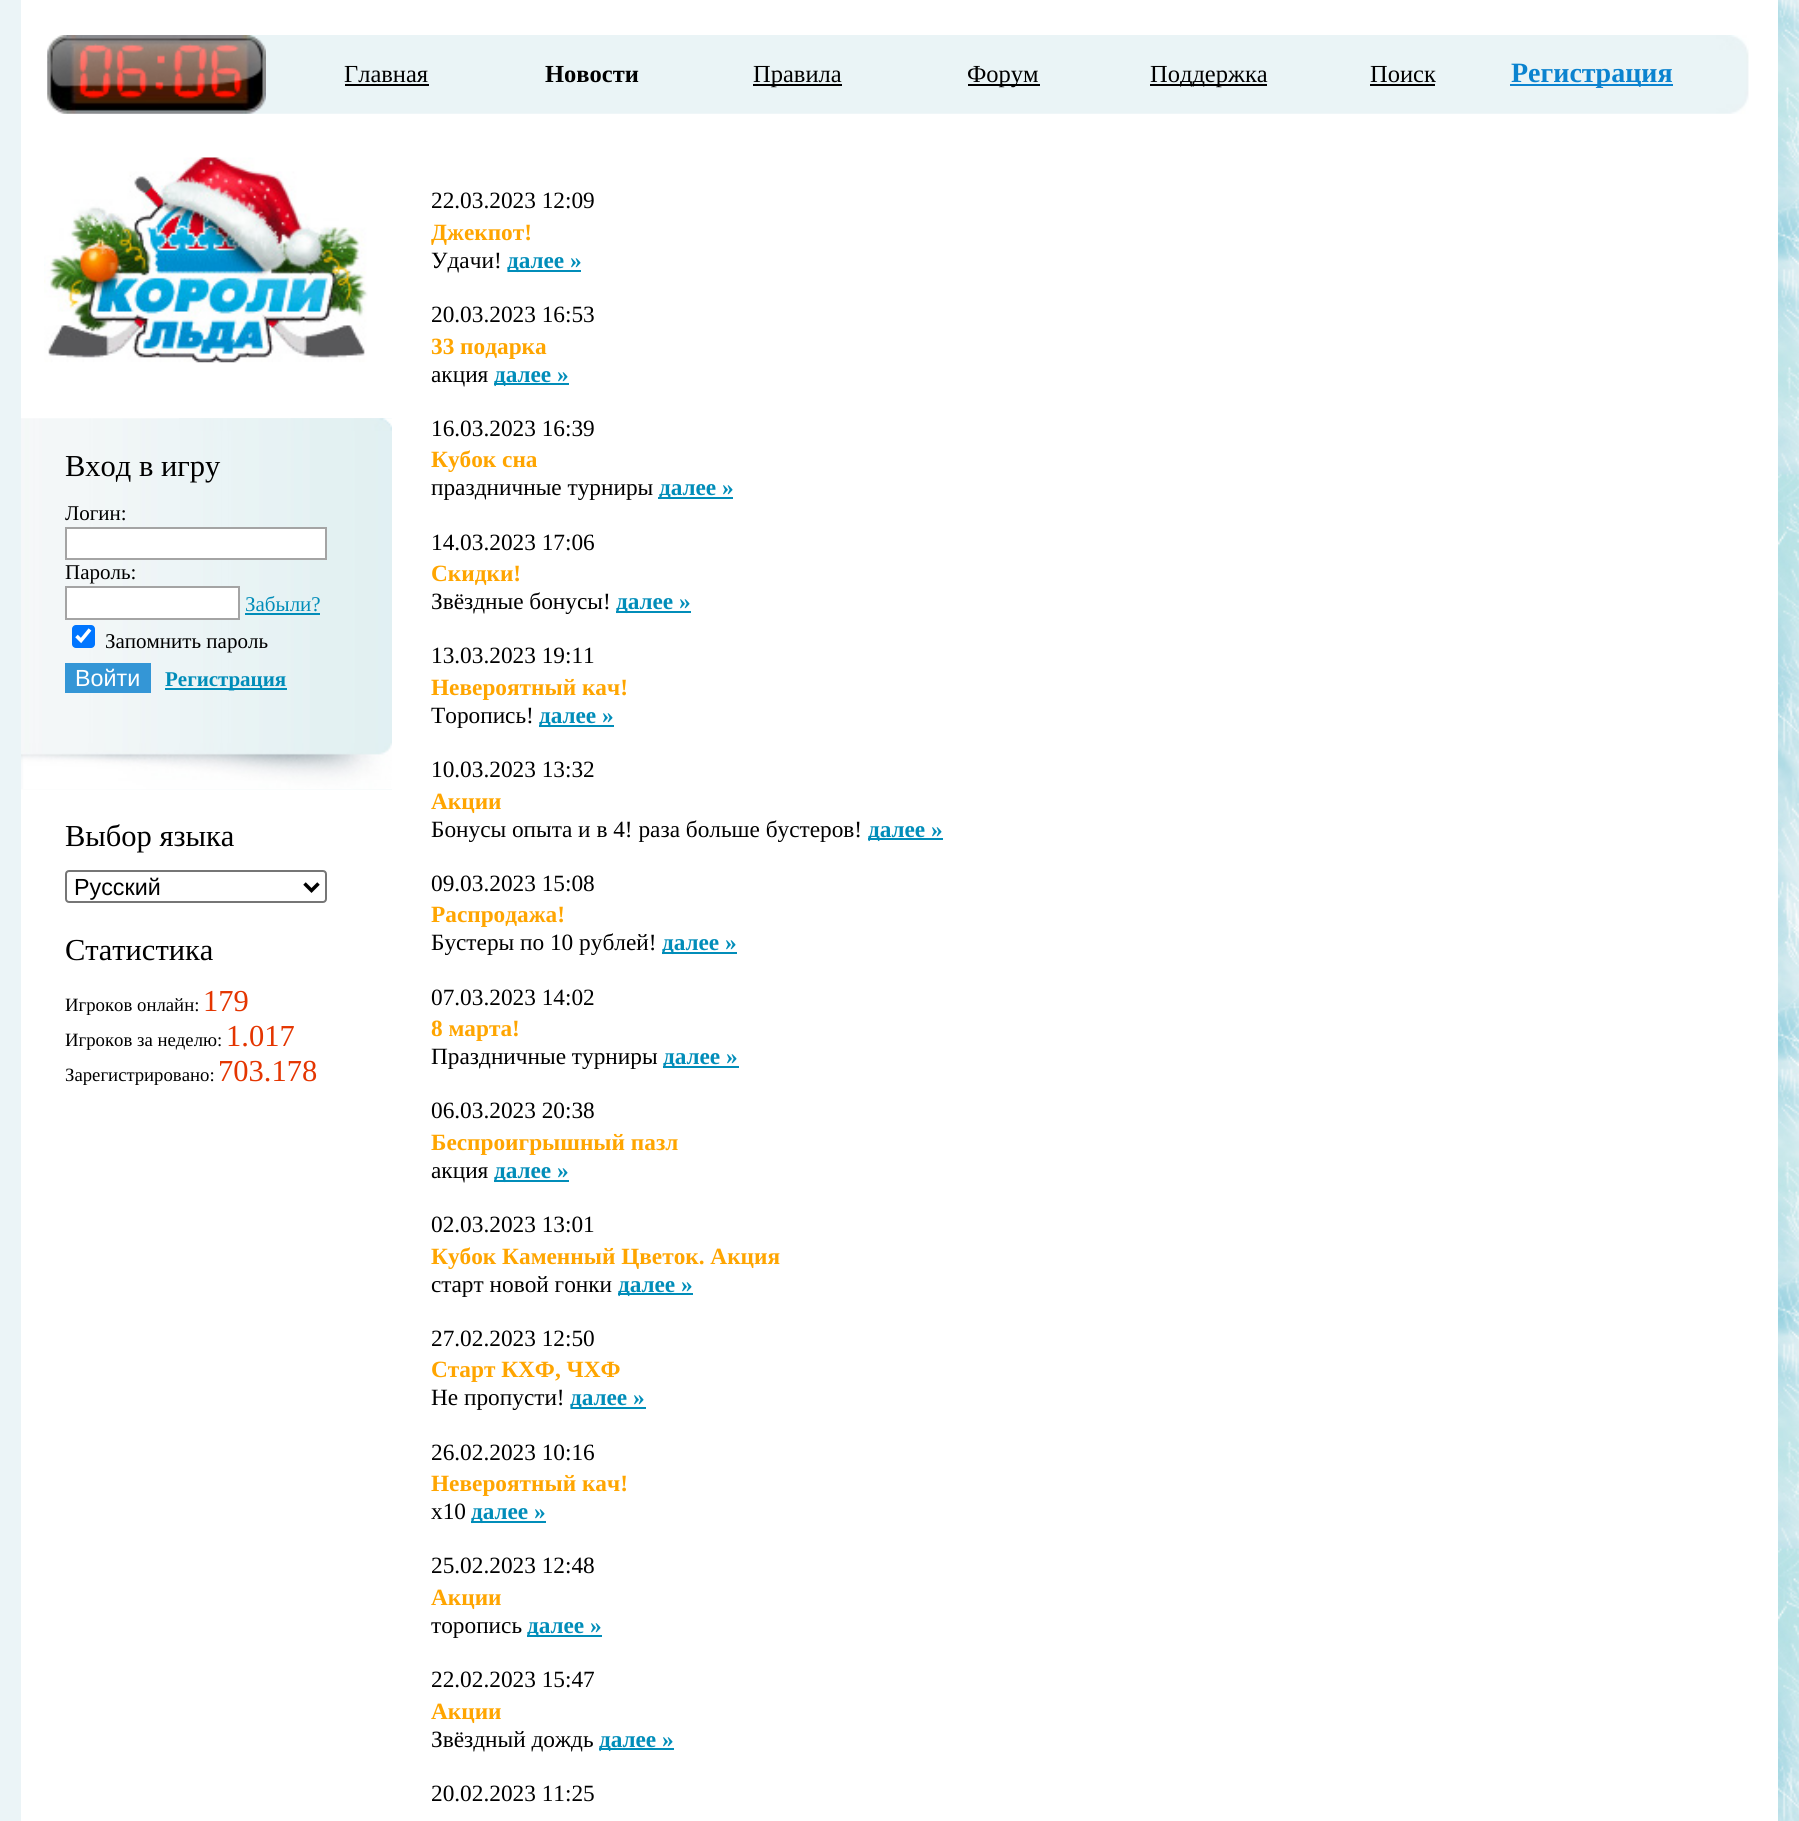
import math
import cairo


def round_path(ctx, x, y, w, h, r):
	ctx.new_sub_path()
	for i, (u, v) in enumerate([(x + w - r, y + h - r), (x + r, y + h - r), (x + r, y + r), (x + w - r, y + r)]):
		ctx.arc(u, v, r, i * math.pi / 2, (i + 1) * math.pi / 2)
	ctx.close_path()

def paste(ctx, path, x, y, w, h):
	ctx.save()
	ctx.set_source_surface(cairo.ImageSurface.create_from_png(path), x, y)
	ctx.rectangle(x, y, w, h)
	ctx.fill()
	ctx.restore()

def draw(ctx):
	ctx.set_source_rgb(0.918, 0.957, 0.965)
	ctx.paint()
	ctx.set_source_rgb(1, 1, 1)
	ctx.rectangle(21, 0, 1757, 1821)
	ctx.fill()
	paste(ctx, 'media/1.png', 78, 35, 1671, 79)
	paste(ctx, 'media/2.png', 47, 35, 219, 79)
	ctx.select_font_face('Liberation Serif')
	ctx.set_font_size(24.5)
	ctx.set_source_rgb(0, 0, 0)
	ctx.move_to(344, 82)
	ctx.show_text('Главная')
	ctx.rectangle(345, 84, 84, 2)
	ctx.fill()
	ctx.select_font_face('Liberation Serif', cairo.FONT_SLANT_NORMAL, cairo.FONT_WEIGHT_BOLD)
	ctx.move_to(545, 82)
	ctx.show_text('Новости')
	ctx.rectangle(753, 84, 89, 2)
	ctx.fill()
	ctx.select_font_face('Liberation Serif')
	ctx.move_to(753, 82)
	ctx.show_text('Правила')
	ctx.rectangle(968, 84, 72, 2)
	ctx.fill()
	ctx.move_to(967, 82)
	ctx.show_text('Форум')
	ctx.rectangle(1150, 84, 117, 2)
	ctx.fill()
	ctx.move_to(1150, 82)
	ctx.show_text('Поддержка')
	ctx.move_to(1370, 82)
	ctx.show_text('Поиск')
	ctx.rectangle(1370, 84, 65, 2)
	ctx.fill()
	ctx.set_source_rgb(0.043, 0.514, 0.812)
	ctx.rectangle(1510, 84, 163, 2)
	ctx.fill()
	ctx.select_font_face('Liberation Serif', cairo.FONT_SLANT_NORMAL, cairo.FONT_WEIGHT_BOLD)
	ctx.set_font_size(28)
	ctx.move_to(1511, 82)
	ctx.show_text('Регистрация')
	paste(ctx, 'media/3.png', 44, 157, 324, 206)
	paste(ctx, 'media/4.png', 21, 418, 371, 372)
	paste(ctx, 'media/5.png', 179, 418, 213, 13)
	ctx.select_font_face('Liberation Serif')
	ctx.set_font_size(30.5)
	ctx.set_source_rgb(0, 0, 0)
	ctx.move_to(65, 476)
	ctx.show_text('Вход в игру')
	ctx.set_font_size(21)
	ctx.move_to(65, 520)
	ctx.show_text('Логин:')
	ctx.set_source_rgb(1, 1, 1)
	ctx.rectangle(66, 528, 260, 31)
	ctx.fill_preserve()
	ctx.set_source_rgb(0.643, 0.643, 0.643)
	ctx.stroke()
	ctx.set_source_rgb(0, 0, 0)
	ctx.move_to(65, 579)
	ctx.show_text('Пароль:')
	ctx.set_source_rgb(1, 1, 1)
	ctx.rectangle(66, 587, 173, 32)
	ctx.fill_preserve()
	ctx.set_source_rgb(0.643, 0.643, 0.643)
	ctx.stroke()
	ctx.set_source_rgb(0.004, 0.553, 0.725)
	ctx.move_to(245, 611)
	ctx.show_text('Забыли?')
	ctx.rectangle(245, 613, 75, 2)
	ctx.fill()
	ctx.set_source_rgb(0, 0.459, 1)
	round_path(ctx, 72, 625, 23, 23, 4)
	ctx.fill()
	ctx.new_path()
	ctx.move_to(76.5, 636)
	ctx.line_to(81, 640.5)
	ctx.line_to(90, 629.5)
	ctx.set_source_rgb(1, 1, 1)
	ctx.set_line_width(3.6)
	ctx.stroke()
	ctx.set_source_rgb(0, 0, 0)
	ctx.move_to(105, 648)
	ctx.show_text('Запомнить пароль')
	ctx.set_source_rgb(0.204, 0.588, 0.839)
	ctx.rectangle(65, 663, 86, 30)
	ctx.fill()
	ctx.select_font_face('Liberation Sans')
	ctx.set_font_size(23.3)
	ctx.set_source_rgb(1, 1, 1)
	ctx.move_to(75, 686)
	ctx.show_text('Войти')
	ctx.set_source_rgb(0.004, 0.553, 0.725)
	ctx.rectangle(165, 688, 122, 2)
	ctx.fill()
	ctx.select_font_face('Liberation Serif', cairo.FONT_SLANT_NORMAL, cairo.FONT_WEIGHT_BOLD)
	ctx.set_font_size(21)
	ctx.move_to(165, 686)
	ctx.show_text('Регистрация')
	paste(ctx, 'media/6.png', 21, 743, 371, 46)
	ctx.select_font_face('Liberation Serif')
	ctx.set_font_size(30.5)
	ctx.set_source_rgb(0, 0, 0)
	ctx.move_to(65, 846)
	ctx.show_text('Выбор языка')
	round_path(ctx, 66, 871, 260, 31, 3)
	ctx.set_source_rgb(0.463, 0.463, 0.463)
	ctx.set_line_width(2)
	ctx.stroke()
	ctx.new_path()
	ctx.move_to(304.5, 883.5)
	ctx.line_to(311.5, 890.5)
	ctx.line_to(318.5, 883.5)
	ctx.set_source_rgb(0, 0, 0)
	ctx.set_line_width(3.5)
	ctx.stroke()
	ctx.select_font_face('Liberation Sans')
	ctx.set_font_size(23.3)
	ctx.move_to(74, 895)
	ctx.show_text('Русский')
	ctx.select_font_face('Liberation Serif')
	ctx.set_font_size(30.5)
	ctx.move_to(65, 960)
	ctx.show_text('Статистика')
	ctx.set_font_size(18.75)
	ctx.move_to(65, 1011)
	ctx.show_text('Игроков онлайн:')
	ctx.set_font_size(30.5)
	ctx.set_source_rgb(0.894, 0.208, 0)
	ctx.move_to(203, 1011)
	ctx.show_text('179')
	ctx.set_font_size(18.75)
	ctx.set_source_rgb(0, 0, 0)
	ctx.move_to(65, 1046)
	ctx.show_text('Игроков за неделю:')
	ctx.set_font_size(30.5)
	ctx.set_source_rgb(0.894, 0.208, 0)
	ctx.move_to(226, 1046)
	ctx.show_text('1.017')
	ctx.set_font_size(18.75)
	ctx.set_source_rgb(0, 0, 0)
	ctx.move_to(65, 1081)
	ctx.show_text('Зарегистрировано:')
	ctx.set_font_size(30.5)
	ctx.set_source_rgb(0.894, 0.208, 0)
	ctx.move_to(218, 1081)
	ctx.show_text('703.178')
	ctx.set_font_size(23.3)
	ctx.set_source_rgb(0, 0, 0)
	ctx.move_to(431, 208)
	ctx.show_text('22.03.2023 12:09')
	ctx.select_font_face('Liberation Serif', cairo.FONT_SLANT_NORMAL, cairo.FONT_WEIGHT_BOLD)
	ctx.set_source_rgb(1, 0.647, 0)
	ctx.move_to(431, 240)
	ctx.show_text('Джекпот!')
	ctx.select_font_face('Liberation Serif')
	ctx.set_source_rgb(0, 0, 0)
	ctx.move_to(431, 268)
	ctx.show_text('Удачи!')
	ctx.set_source_rgb(0.004, 0.553, 0.725)
	ctx.rectangle(508, 270, 73, 2)
	ctx.fill()
	ctx.select_font_face('Liberation Serif', cairo.FONT_SLANT_NORMAL, cairo.FONT_WEIGHT_BOLD)
	ctx.move_to(507, 268)
	ctx.show_text('далее »')
	ctx.select_font_face('Liberation Serif')
	ctx.set_source_rgb(0, 0, 0)
	ctx.move_to(431, 322)
	ctx.show_text('20.03.2023 16:53')
	ctx.select_font_face('Liberation Serif', cairo.FONT_SLANT_NORMAL, cairo.FONT_WEIGHT_BOLD)
	ctx.set_source_rgb(1, 0.647, 0)
	ctx.move_to(431, 354)
	ctx.show_text('33 подарка')
	ctx.select_font_face('Liberation Serif')
	ctx.set_source_rgb(0, 0, 0)
	ctx.move_to(431, 382)
	ctx.show_text('акция')
	ctx.set_source_rgb(0.004, 0.553, 0.725)
	ctx.rectangle(494, 383, 75, 2)
	ctx.fill()
	ctx.select_font_face('Liberation Serif', cairo.FONT_SLANT_NORMAL, cairo.FONT_WEIGHT_BOLD)
	ctx.move_to(494, 382)
	ctx.show_text('далее »')
	ctx.select_font_face('Liberation Serif')
	ctx.set_source_rgb(0, 0, 0)
	ctx.move_to(431, 436)
	ctx.show_text('16.03.2023 16:39')
	ctx.select_font_face('Liberation Serif', cairo.FONT_SLANT_NORMAL, cairo.FONT_WEIGHT_BOLD)
	ctx.set_source_rgb(1, 0.647, 0)
	ctx.move_to(431, 467)
	ctx.show_text('Кубок сна')
	ctx.select_font_face('Liberation Serif')
	ctx.set_source_rgb(0, 0, 0)
	ctx.move_to(431, 495)
	ctx.show_text('праздничные турниры')
	ctx.set_source_rgb(0.004, 0.553, 0.725)
	ctx.rectangle(658, 497, 75, 2)
	ctx.fill()
	ctx.select_font_face('Liberation Serif', cairo.FONT_SLANT_NORMAL, cairo.FONT_WEIGHT_BOLD)
	ctx.move_to(659, 495)
	ctx.show_text('далее »')
	ctx.select_font_face('Liberation Serif')
	ctx.set_source_rgb(0, 0, 0)
	ctx.move_to(431, 550)
	ctx.show_text('14.03.2023 17:06')
	ctx.select_font_face('Liberation Serif', cairo.FONT_SLANT_NORMAL, cairo.FONT_WEIGHT_BOLD)
	ctx.set_source_rgb(1, 0.647, 0)
	ctx.move_to(431, 581)
	ctx.show_text('Скидки!')
	ctx.select_font_face('Liberation Serif')
	ctx.set_source_rgb(0, 0, 0)
	ctx.move_to(431, 609)
	ctx.show_text('Звёздные бонусы!')
	ctx.set_source_rgb(0.004, 0.553, 0.725)
	ctx.rectangle(616, 611, 75, 2)
	ctx.fill()
	ctx.select_font_face('Liberation Serif', cairo.FONT_SLANT_NORMAL, cairo.FONT_WEIGHT_BOLD)
	ctx.move_to(616, 609)
	ctx.show_text('далее »')
	ctx.select_font_face('Liberation Serif')
	ctx.set_source_rgb(0, 0, 0)
	ctx.move_to(431, 663)
	ctx.show_text('13.03.2023 19:11')
	ctx.select_font_face('Liberation Serif', cairo.FONT_SLANT_NORMAL, cairo.FONT_WEIGHT_BOLD)
	ctx.set_source_rgb(1, 0.647, 0)
	ctx.move_to(431, 695)
	ctx.show_text('Невероятный кач!')
	ctx.select_font_face('Liberation Serif')
	ctx.set_source_rgb(0, 0, 0)
	ctx.move_to(431, 723)
	ctx.show_text('Торопись!')
	ctx.set_source_rgb(0.004, 0.553, 0.725)
	ctx.rectangle(539, 725, 75, 2)
	ctx.fill()
	ctx.select_font_face('Liberation Serif', cairo.FONT_SLANT_NORMAL, cairo.FONT_WEIGHT_BOLD)
	ctx.move_to(539, 723)
	ctx.show_text('далее »')
	ctx.select_font_face('Liberation Serif')
	ctx.set_source_rgb(0, 0, 0)
	ctx.move_to(431, 777)
	ctx.show_text('10.03.2023 13:32')
	ctx.select_font_face('Liberation Serif', cairo.FONT_SLANT_NORMAL, cairo.FONT_WEIGHT_BOLD)
	ctx.set_source_rgb(1, 0.647, 0)
	ctx.move_to(431, 809)
	ctx.show_text('Акции')
	ctx.select_font_face('Liberation Serif')
	ctx.set_source_rgb(0, 0, 0)
	ctx.move_to(431, 837)
	ctx.show_text('Бонусы опыта и в 4! раза больше бустеров!')
	ctx.set_source_rgb(0.004, 0.553, 0.725)
	ctx.rectangle(868, 838, 75, 2)
	ctx.fill()
	ctx.select_font_face('Liberation Serif', cairo.FONT_SLANT_NORMAL, cairo.FONT_WEIGHT_BOLD)
	ctx.move_to(868, 837)
	ctx.show_text('далее »')
	ctx.select_font_face('Liberation Serif')
	ctx.set_source_rgb(0, 0, 0)
	ctx.move_to(431, 891)
	ctx.show_text('09.03.2023 15:08')
	ctx.select_font_face('Liberation Serif', cairo.FONT_SLANT_NORMAL, cairo.FONT_WEIGHT_BOLD)
	ctx.set_source_rgb(1, 0.647, 0)
	ctx.move_to(431, 922)
	ctx.show_text('Распродажа!')
	ctx.select_font_face('Liberation Serif')
	ctx.set_source_rgb(0, 0, 0)
	ctx.move_to(431, 950)
	ctx.show_text('Бустеры по 10 рублей!')
	ctx.set_source_rgb(0.004, 0.553, 0.725)
	ctx.rectangle(662, 952, 75, 2)
	ctx.fill()
	ctx.select_font_face('Liberation Serif', cairo.FONT_SLANT_NORMAL, cairo.FONT_WEIGHT_BOLD)
	ctx.move_to(662, 950)
	ctx.show_text('далее »')
	ctx.select_font_face('Liberation Serif')
	ctx.set_source_rgb(0, 0, 0)
	ctx.move_to(431, 1005)
	ctx.show_text('07.03.2023 14:02')
	ctx.select_font_face('Liberation Serif', cairo.FONT_SLANT_NORMAL, cairo.FONT_WEIGHT_BOLD)
	ctx.set_source_rgb(1, 0.647, 0)
	ctx.move_to(431, 1036)
	ctx.show_text('8 марта!')
	ctx.select_font_face('Liberation Serif')
	ctx.set_source_rgb(0, 0, 0)
	ctx.move_to(431, 1064)
	ctx.show_text('Праздничные турниры')
	ctx.set_source_rgb(0.004, 0.553, 0.725)
	ctx.rectangle(663, 1066, 76, 2)
	ctx.fill()
	ctx.select_font_face('Liberation Serif', cairo.FONT_SLANT_NORMAL, cairo.FONT_WEIGHT_BOLD)
	ctx.move_to(663, 1064)
	ctx.show_text('далее »')
	ctx.select_font_face('Liberation Serif')
	ctx.set_source_rgb(0, 0, 0)
	ctx.move_to(431, 1118)
	ctx.show_text('06.03.2023 20:38')
	ctx.select_font_face('Liberation Serif', cairo.FONT_SLANT_NORMAL, cairo.FONT_WEIGHT_BOLD)
	ctx.set_source_rgb(1, 0.647, 0)
	ctx.move_to(431, 1150)
	ctx.show_text('Беспроигрышный пазл')
	ctx.select_font_face('Liberation Serif')
	ctx.set_source_rgb(0, 0, 0)
	ctx.move_to(431, 1178)
	ctx.show_text('акция')
	ctx.set_source_rgb(0.004, 0.553, 0.725)
	ctx.rectangle(494, 1180, 75, 2)
	ctx.fill()
	ctx.select_font_face('Liberation Serif', cairo.FONT_SLANT_NORMAL, cairo.FONT_WEIGHT_BOLD)
	ctx.move_to(494, 1178)
	ctx.show_text('далее »')
	ctx.select_font_face('Liberation Serif')
	ctx.set_source_rgb(0, 0, 0)
	ctx.move_to(431, 1232)
	ctx.show_text('02.03.2023 13:01')
	ctx.select_font_face('Liberation Serif', cairo.FONT_SLANT_NORMAL, cairo.FONT_WEIGHT_BOLD)
	ctx.set_source_rgb(1, 0.647, 0)
	ctx.move_to(431, 1264)
	ctx.show_text('Кубок Каменный Цветок. Акция')
	ctx.select_font_face('Liberation Serif')
	ctx.set_source_rgb(0, 0, 0)
	ctx.move_to(431, 1292)
	ctx.show_text('старт новой гонки')
	ctx.set_source_rgb(0.004, 0.553, 0.725)
	ctx.rectangle(618, 1293, 75, 2)
	ctx.fill()
	ctx.select_font_face('Liberation Serif', cairo.FONT_SLANT_NORMAL, cairo.FONT_WEIGHT_BOLD)
	ctx.move_to(618, 1292)
	ctx.show_text('далее »')
	ctx.select_font_face('Liberation Serif')
	ctx.set_source_rgb(0, 0, 0)
	ctx.move_to(431, 1346)
	ctx.show_text('27.02.2023 12:50')
	ctx.select_font_face('Liberation Serif', cairo.FONT_SLANT_NORMAL, cairo.FONT_WEIGHT_BOLD)
	ctx.set_source_rgb(1, 0.647, 0)
	ctx.move_to(431, 1377)
	ctx.show_text('Старт КХФ, ЧХФ')
	ctx.select_font_face('Liberation Serif')
	ctx.set_source_rgb(0, 0, 0)
	ctx.move_to(431, 1405)
	ctx.show_text('Не пропусти!')
	ctx.set_source_rgb(0.004, 0.553, 0.725)
	ctx.rectangle(571, 1407, 75, 2)
	ctx.fill()
	ctx.select_font_face('Liberation Serif', cairo.FONT_SLANT_NORMAL, cairo.FONT_WEIGHT_BOLD)
	ctx.move_to(570, 1405)
	ctx.show_text('далее »')
	ctx.select_font_face('Liberation Serif')
	ctx.set_source_rgb(0, 0, 0)
	ctx.move_to(431, 1460)
	ctx.show_text('26.02.2023 10:16')
	ctx.select_font_face('Liberation Serif', cairo.FONT_SLANT_NORMAL, cairo.FONT_WEIGHT_BOLD)
	ctx.set_source_rgb(1, 0.647, 0)
	ctx.move_to(431, 1491)
	ctx.show_text('Невероятный кач!')
	ctx.select_font_face('Liberation Serif')
	ctx.set_source_rgb(0, 0, 0)
	ctx.move_to(431, 1519)
	ctx.show_text('х10')
	ctx.set_source_rgb(0.004, 0.553, 0.725)
	ctx.rectangle(471, 1521, 75, 2)
	ctx.fill()
	ctx.select_font_face('Liberation Serif', cairo.FONT_SLANT_NORMAL, cairo.FONT_WEIGHT_BOLD)
	ctx.move_to(471, 1519)
	ctx.show_text('далее »')
	ctx.select_font_face('Liberation Serif')
	ctx.set_source_rgb(0, 0, 0)
	ctx.move_to(431, 1573)
	ctx.show_text('25.02.2023 12:48')
	ctx.select_font_face('Liberation Serif', cairo.FONT_SLANT_NORMAL, cairo.FONT_WEIGHT_BOLD)
	ctx.set_source_rgb(1, 0.647, 0)
	ctx.move_to(431, 1605)
	ctx.show_text('Акции')
	ctx.select_font_face('Liberation Serif')
	ctx.set_source_rgb(0, 0, 0)
	ctx.move_to(431, 1633)
	ctx.show_text('торопись')
	ctx.set_source_rgb(0.004, 0.553, 0.725)
	ctx.rectangle(527, 1635, 75, 2)
	ctx.fill()
	ctx.select_font_face('Liberation Serif', cairo.FONT_SLANT_NORMAL, cairo.FONT_WEIGHT_BOLD)
	ctx.move_to(527, 1633)
	ctx.show_text('далее »')
	ctx.select_font_face('Liberation Serif')
	ctx.set_source_rgb(0, 0, 0)
	ctx.move_to(431, 1687)
	ctx.show_text('22.02.2023 15:47')
	ctx.select_font_face('Liberation Serif', cairo.FONT_SLANT_NORMAL, cairo.FONT_WEIGHT_BOLD)
	ctx.set_source_rgb(1, 0.647, 0)
	ctx.move_to(431, 1719)
	ctx.show_text('Акции')
	ctx.select_font_face('Liberation Serif')
	ctx.set_source_rgb(0, 0, 0)
	ctx.move_to(431, 1747)
	ctx.show_text('Звёздный дождь')
	ctx.set_source_rgb(0.004, 0.553, 0.725)
	ctx.rectangle(599, 1748, 75, 2)
	ctx.fill()
	ctx.select_font_face('Liberation Serif', cairo.FONT_SLANT_NORMAL, cairo.FONT_WEIGHT_BOLD)
	ctx.move_to(599, 1747)
	ctx.show_text('далее »')
	ctx.select_font_face('Liberation Serif')
	ctx.set_source_rgb(0, 0, 0)
	ctx.move_to(431, 1801)
	ctx.show_text('20.02.2023 11:25')
	paste(ctx, 'media/7.png', 1778, 0, 21, 1821)


surface = cairo.ImageSurface(cairo.FORMAT_RGB24, 1799, 1821)
ctx = cairo.Context(surface)
options = cairo.FontOptions()
options.set_hint_metrics(cairo.HINT_METRICS_OFF)
options.set_hint_style(cairo.HINT_STYLE_NONE)
ctx.set_font_options(options)
ctx.set_miter_limit(4)
draw(ctx)
surface.write_to_png('image.png')
